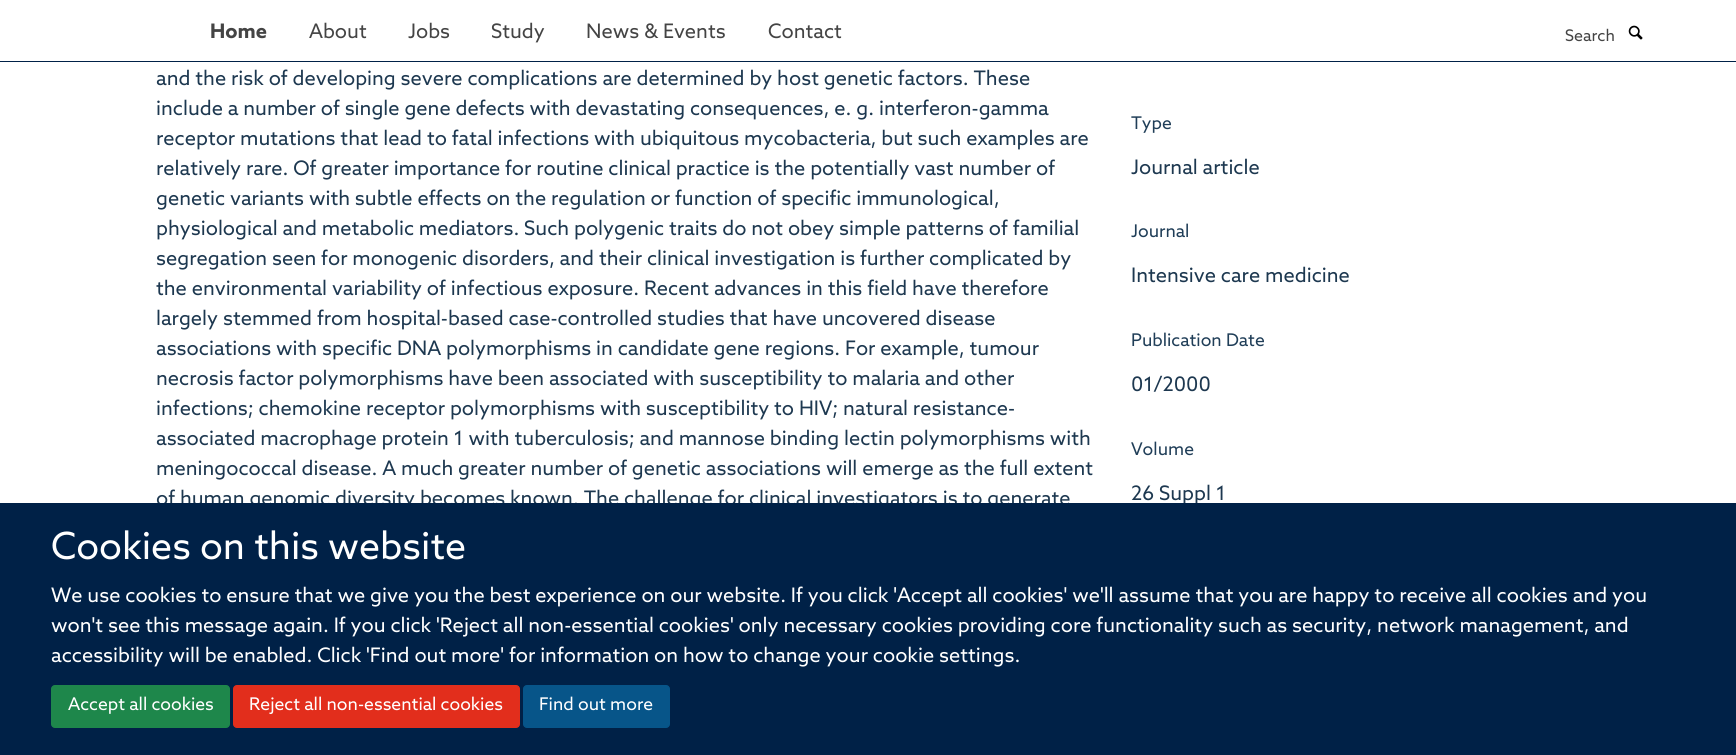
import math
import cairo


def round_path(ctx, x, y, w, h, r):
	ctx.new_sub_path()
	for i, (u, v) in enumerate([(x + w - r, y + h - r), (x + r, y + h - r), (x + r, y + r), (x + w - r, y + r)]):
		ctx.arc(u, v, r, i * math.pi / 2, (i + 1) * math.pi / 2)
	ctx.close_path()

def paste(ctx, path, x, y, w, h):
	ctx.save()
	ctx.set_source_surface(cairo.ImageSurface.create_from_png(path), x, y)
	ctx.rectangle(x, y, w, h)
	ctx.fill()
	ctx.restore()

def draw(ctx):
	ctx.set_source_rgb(1, 1, 1)
	ctx.paint()
	ctx.set_source_rgb(0, 0.129, 0.278)
	ctx.rectangle(0, 61, 1736, 1)
	ctx.fill()
	ctx.select_font_face('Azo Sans', cairo.FONT_SLANT_NORMAL, cairo.FONT_WEIGHT_BOLD)
	ctx.set_font_size(20)
	ctx.set_source_rgb(0.267, 0.267, 0.267)
	ctx.move_to(210, 38)
	ctx.show_text('Home')
	ctx.select_font_face('Azo Sans')
	for x, y, s in [
		(309, 38, 'About'),
		(408, 38, 'Jobs'),
		(491, 38, 'Study'),
		(586, 38, 'News & Events'),
		(768, 38, 'Contact'),
	]:
		ctx.move_to(x, y)
		ctx.show_text(s)
	ctx.set_font_size(16)
	ctx.move_to(1565, 41)
	ctx.show_text('Search')
	paste(ctx, 'media/1.png', 1628, 25, 15, 15)
	ctx.set_font_size(20)
	ctx.set_source_rgb(0.114, 0.22, 0.314)
	for x, y, s in [
		(156, 85, 'and the risk of developing severe complications are determined by host genetic factors. These'),
		(156, 115, 'include a number of single gene defects with devastating consequences, e. g. interferon-gamma'),
		(156, 145, 'receptor mutations that lead to fatal infections with ubiquitous mycobacteria, but such examples are'),
		(156, 175, 'relatively rare. Of greater importance for routine clinical practice is the potentially vast number of'),
		(156, 205, 'genetic variants with subtle effects on the regulation or function of specific immunological,'),
		(156, 235, 'physiological and metabolic mediators. Such polygenic traits do not obey simple patterns of familial'),
		(156, 265, 'segregation seen for monogenic disorders, and their clinical investigation is further complicated by'),
		(156, 295, 'the environmental variability of infectious exposure. Recent advances in this field have therefore'),
		(156, 325, 'largely stemmed from hospital-based case-controlled studies that have uncovered disease'),
		(156, 355, 'associations with specific DNA polymorphisms in candidate gene regions. For example, tumour'),
		(156, 385, 'necrosis factor polymorphisms have been associated with susceptibility to malaria and other'),
		(156, 415, 'infections; chemokine receptor polymorphisms with susceptibility to HIV; natural resistance-'),
		(156, 445, 'associated macrophage protein 1 with tuberculosis; and mannose binding lectin polymorphisms with'),
		(156, 475, 'meningococcal disease. A much greater number of genetic associations will emerge as the full extent'),
		(156, 505, 'of human genomic diversity becomes known. The challenge for clinical investigators is to generate'),
	]:
		ctx.move_to(x, y)
		ctx.show_text(s)
	ctx.set_font_size(17.5)
	ctx.set_source_rgb(0.125, 0.243, 0.345)
	ctx.move_to(1131, 129)
	ctx.show_text('Type')
	ctx.set_font_size(20)
	ctx.set_source_rgb(0.114, 0.22, 0.314)
	ctx.move_to(1131, 174)
	ctx.show_text('Journal article')
	ctx.set_font_size(17.5)
	ctx.set_source_rgb(0.125, 0.243, 0.345)
	ctx.move_to(1131, 237)
	ctx.show_text('Journal')
	ctx.set_font_size(20)
	ctx.set_source_rgb(0.114, 0.22, 0.314)
	ctx.move_to(1131, 282)
	ctx.show_text('Intensive care medicine')
	ctx.set_font_size(17.5)
	ctx.set_source_rgb(0.125, 0.243, 0.345)
	ctx.move_to(1131, 346)
	ctx.show_text('Publication Date')
	ctx.set_font_size(20)
	ctx.set_source_rgb(0.114, 0.22, 0.314)
	ctx.move_to(1131, 391)
	ctx.show_text('01/2000')
	ctx.set_font_size(17.5)
	ctx.set_source_rgb(0.125, 0.243, 0.345)
	ctx.move_to(1131, 455)
	ctx.show_text('Volume')
	ctx.set_font_size(20)
	ctx.set_source_rgb(0.114, 0.22, 0.314)
	ctx.move_to(1131, 500)
	ctx.show_text('26 Suppl 1')
	ctx.set_source_rgb(0, 0.129, 0.278)
	ctx.rectangle(0, 503, 1736, 252)
	ctx.fill()
	ctx.set_font_size(37.5)
	ctx.set_source_rgb(1, 1, 1)
	ctx.move_to(51, 559)
	ctx.show_text('Cookies on this website')
	ctx.set_font_size(20)
	for x, y, s in [
		(51, 602, 'We use cookies to ensure that we give you the best experience on our website. If you click \'Accept all cookies\' we\'ll assume that you are happy to receive all cookies and you'),
		(51, 632, 'won\'t see this message again. If you click \'Reject all non-essential cookies\' only necessary cookies providing core functionality such as security, network management, and'),
		(51, 662, 'accessibility will be enabled. Click \'Find out more\' for information on how to change your cookie settings.'),
	]:
		ctx.move_to(x, y)
		ctx.show_text(s)
	ctx.set_source_rgb(0.118, 0.529, 0.294)
	round_path(ctx, 51.5, 685.5, 178, 42, 3.5)
	ctx.fill_preserve()
	ctx.set_line_width(1)
	ctx.stroke()
	ctx.set_font_size(17.5)
	ctx.set_source_rgb(1, 1, 1)
	ctx.move_to(68, 710)
	ctx.show_text('Accept all cookies')
	ctx.set_source_rgb(0.886, 0.18, 0.11)
	round_path(ctx, 233.5, 685.5, 286, 42, 3.5)
	ctx.fill_preserve()
	ctx.stroke()
	ctx.set_source_rgb(1, 1, 1)
	ctx.move_to(249, 710)
	ctx.show_text('Reject all non-essential cookies')
	ctx.set_source_rgb(0.031, 0.333, 0.537)
	round_path(ctx, 523.5, 685.5, 146, 42, 3.5)
	ctx.fill_preserve()
	ctx.stroke()
	ctx.set_source_rgb(1, 1, 1)
	ctx.move_to(539, 710)
	ctx.show_text('Find out more')


surface = cairo.ImageSurface(cairo.FORMAT_RGB24, 1736, 755)
ctx = cairo.Context(surface)
options = cairo.FontOptions()
options.set_hint_metrics(cairo.HINT_METRICS_OFF)
options.set_hint_style(cairo.HINT_STYLE_NONE)
ctx.set_font_options(options)
ctx.set_miter_limit(4)
draw(ctx)
surface.write_to_png('image.png')
